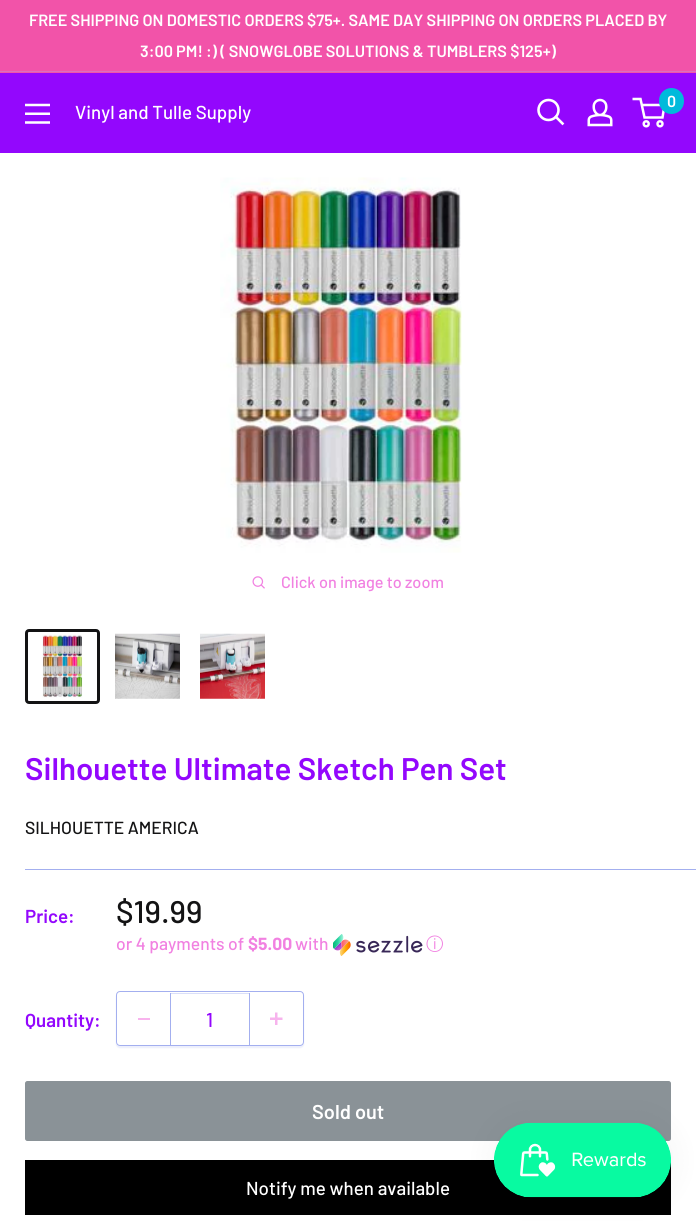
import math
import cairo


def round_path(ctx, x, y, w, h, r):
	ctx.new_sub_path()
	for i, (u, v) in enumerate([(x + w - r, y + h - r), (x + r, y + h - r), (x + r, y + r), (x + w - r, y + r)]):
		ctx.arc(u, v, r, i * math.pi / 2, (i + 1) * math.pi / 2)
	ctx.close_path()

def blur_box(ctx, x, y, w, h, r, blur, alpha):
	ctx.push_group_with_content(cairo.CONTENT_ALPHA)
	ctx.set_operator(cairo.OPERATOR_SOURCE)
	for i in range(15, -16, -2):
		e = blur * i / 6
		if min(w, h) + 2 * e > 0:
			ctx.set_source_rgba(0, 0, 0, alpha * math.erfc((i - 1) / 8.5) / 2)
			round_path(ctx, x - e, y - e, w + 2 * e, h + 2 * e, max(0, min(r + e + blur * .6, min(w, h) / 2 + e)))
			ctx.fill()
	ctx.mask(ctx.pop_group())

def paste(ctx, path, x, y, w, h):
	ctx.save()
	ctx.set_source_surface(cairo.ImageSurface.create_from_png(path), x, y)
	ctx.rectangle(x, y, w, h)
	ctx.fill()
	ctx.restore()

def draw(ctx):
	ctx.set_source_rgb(0.949, 0.325, 0.663)
	ctx.paint()
	ctx.set_source_rgb(0.855, 0.435, 0.745)
	ctx.rectangle(0, 71, 696, 1)
	ctx.fill()
	ctx.select_font_face('Barlow SemiBold')
	ctx.set_font_size(16.25)
	ctx.set_source_rgb(1, 1, 1)
	ctx.move_to(29, 26)
	ctx.show_text('FREE SHIPPING ON DOMESTIC ORDERS $75+. SAME DAY SHIPPING ON ORDERS PLACED BY')
	ctx.move_to(140, 57)
	ctx.show_text('3:00 PM! :) ( SNOWGLOBE SOLUTIONS & TUMBLERS $125+)')
	ctx.set_source_rgb(0.576, 0.031, 0.992)
	ctx.rectangle(0, 73, 696, 80)
	ctx.fill()
	ctx.new_path()
	ctx.move_to(562.5, 123.5)
	ctx.line_to(556, 117)
	ctx.set_source_rgb(1, 1, 1)
	ctx.set_line_width(2.6)
	ctx.set_line_cap(cairo.LINE_CAP_SQUARE)
	ctx.stroke()
	ctx.arc(548.5, 110, 10, 0, 2 * math.pi)
	ctx.set_line_cap(cairo.LINE_CAP_BUTT)
	ctx.stroke()
	paste(ctx, 'media/1.png', 587, 98, 26, 29)
	ctx.arc(646.2, 123.8, 2.5, 0, 2 * math.pi)
	ctx.set_line_width(2.5)
	ctx.stroke()
	ctx.arc(660, 123.8, 2.5, 0, 2 * math.pi)
	ctx.stroke()
	ctx.new_path()
	ctx.move_to(641.5, 105)
	ctx.line_to(664.5, 105)
	ctx.line_to(662.5, 117.5)
	ctx.line_to(644.5, 117.5)
	ctx.line_to(640.5, 99)
	ctx.line_to(632.5, 99)
	ctx.stroke()
	ctx.set_source_rgb(0, 0.729, 0.859)
	round_path(ctx, 659, 88, 25, 26, 12.5)
	ctx.fill()
	ctx.set_font_size(16)
	ctx.set_source_rgb(1, 1, 1)
	ctx.move_to(667, 107)
	ctx.show_text('0')
	paste(ctx, 'media/2.png', 25, 103, 25, 21)
	ctx.select_font_face('Barlow Medium')
	ctx.set_font_size(18.75)
	ctx.move_to(75, 119)
	ctx.show_text('Vinyl and Tulle Supply')
	ctx.rectangle(0, 153, 696, 1069)
	ctx.fill()
	paste(ctx, 'media/3.png', 220, 177, 242, 376)
	paste(ctx, 'media/4.png', 252, 576, 13, 13)
	ctx.set_font_size(16.25)
	ctx.set_source_rgb(0.945, 0.506, 0.882)
	ctx.move_to(281, 588)
	ctx.show_text('Click on image to zoom')
	round_path(ctx, 26.5, 630.5, 72, 72, 2.5)
	ctx.set_source_rgb(0.078, 0.078, 0.082)
	ctx.set_line_width(3)
	ctx.stroke()
	paste(ctx, 'media/5.png', 42, 634, 41, 64)
	paste(ctx, 'media/6.png', 115, 633, 65, 66)
	paste(ctx, 'media/7.png', 200, 633, 65, 66)
	ctx.select_font_face('Barlow SemiBold')
	ctx.set_font_size(31.25)
	ctx.set_source_rgb(0.576, 0.031, 0.992)
	ctx.move_to(25, 780)
	ctx.show_text('Silhouette Ultimate Sketch Pen Set')
	ctx.select_font_face('Barlow Medium')
	ctx.set_font_size(17.5)
	ctx.set_source_rgb(0.078, 0.078, 0.082)
	ctx.move_to(25, 834)
	ctx.show_text('SILHOUETTE AMERICA')
	ctx.set_source_rgb(0.639, 0.686, 0.937)
	ctx.rectangle(25, 869, 671, 1)
	ctx.fill()
	ctx.select_font_face('Barlow SemiBold')
	ctx.set_font_size(18.75)
	ctx.set_source_rgb(0.576, 0.031, 0.992)
	ctx.move_to(25, 923)
	ctx.show_text('Price:')
	ctx.select_font_face('Barlow Medium')
	ctx.set_font_size(31.25)
	ctx.set_source_rgb(0.078, 0.078, 0.082)
	ctx.move_to(116, 923)
	ctx.show_text('$19.99')
	ctx.set_font_size(17.5)
	ctx.set_source_rgb(0.945, 0.506, 0.882)
	ctx.move_to(116, 950)
	ctx.show_text('or 4 payments of')
	ctx.select_font_face('Barlow', cairo.FONT_SLANT_NORMAL, cairo.FONT_WEIGHT_BOLD)
	ctx.move_to(248, 950)
	ctx.show_text('$5.00')
	ctx.select_font_face('Barlow Medium')
	ctx.move_to(295, 950)
	ctx.show_text('with')
	paste(ctx, 'media/8.png', 333, 934, 90, 22)
	ctx.select_font_face('WenQuanYi Zen Hei Medium')
	ctx.move_to(426, 950)
	ctx.show_text('ⓘ')
	ctx.select_font_face('Barlow SemiBold')
	ctx.set_font_size(18.75)
	ctx.set_source_rgb(0.576, 0.031, 0.992)
	ctx.move_to(25, 1027)
	ctx.show_text('Quantity:')
	ctx.save()
	ctx.set_fill_rule(cairo.FILL_RULE_EVEN_ODD)
	ctx.new_path()
	ctx.move_to(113, 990)
	ctx.line_to(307, 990)
	ctx.line_to(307, 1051)
	ctx.line_to(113, 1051)
	ctx.close_path()
	ctx.move_to(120, 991)
	ctx.line_to(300, 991)
	ctx.curve_to(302, 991, 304, 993, 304, 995)
	ctx.line_to(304, 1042)
	ctx.curve_to(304, 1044, 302, 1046, 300, 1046)
	ctx.line_to(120, 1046)
	ctx.curve_to(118, 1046, 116, 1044, 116, 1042)
	ctx.line_to(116, 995)
	ctx.curve_to(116, 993, 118, 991, 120, 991)
	ctx.close_path()
	ctx.clip()
	ctx.set_source_rgb(0.639, 0.686, 0.937)
	blur_box(ctx, 116, 993, 188, 55, 4, 0.5, 0.2)
	ctx.restore()
	round_path(ctx, 116.5, 991.5, 187, 54, 3.5)
	ctx.set_source_rgb(0.639, 0.686, 0.937)
	ctx.set_line_width(1)
	ctx.stroke()
	ctx.set_source_rgb(0.969, 0.702, 0.929)
	ctx.rectangle(138, 1018, 12, 2)
	ctx.fill()
	ctx.set_source_rgb(0.855, 0.875, 0.976)
	ctx.rectangle(171, 993, 78, 1)
	ctx.fill()
	ctx.set_source_rgb(0.639, 0.686, 0.937)
	ctx.rectangle(249, 993, 1, 52)
	ctx.rectangle(170, 993, 1, 52)
	ctx.fill()
	ctx.select_font_face('Barlow Medium')
	ctx.set_font_size(20)
	ctx.set_source_rgb(0.576, 0.031, 0.992)
	ctx.move_to(206, 1027)
	ctx.show_text('1')
	paste(ctx, 'media/9.png', 270, 1012, 13, 13)
	ctx.set_source_rgb(0.541, 0.573, 0.592)
	round_path(ctx, 25.5, 1081.5, 645, 59, 2)
	ctx.fill_preserve()
	ctx.stroke()
	ctx.select_font_face('Barlow SemiBold')
	ctx.set_source_rgb(1, 1, 1)
	ctx.move_to(312, 1119)
	ctx.show_text('Sold out')
	ctx.set_source_rgb(0, 0, 0)
	ctx.rectangle(25, 1160, 646, 55)
	ctx.fill()
	ctx.select_font_face('Barlow Medium')
	ctx.set_font_size(18.75)
	ctx.set_source_rgb(1, 1, 1)
	ctx.move_to(246, 1195)
	ctx.show_text('Notify me when available')
	ctx.set_source_rgb(0, 0, 0)
	blur_box(ctx, 494, 1123, 177, 75, 37.5, 15.5, 0.05)
	paste(ctx, 'media/10.png', 494, 1122, 177, 76)


surface = cairo.ImageSurface(cairo.FORMAT_RGB24, 696, 1222)
ctx = cairo.Context(surface)
options = cairo.FontOptions()
options.set_hint_metrics(cairo.HINT_METRICS_OFF)
options.set_hint_style(cairo.HINT_STYLE_NONE)
ctx.set_font_options(options)
ctx.set_miter_limit(4)
draw(ctx)
surface.write_to_png('image.png')
